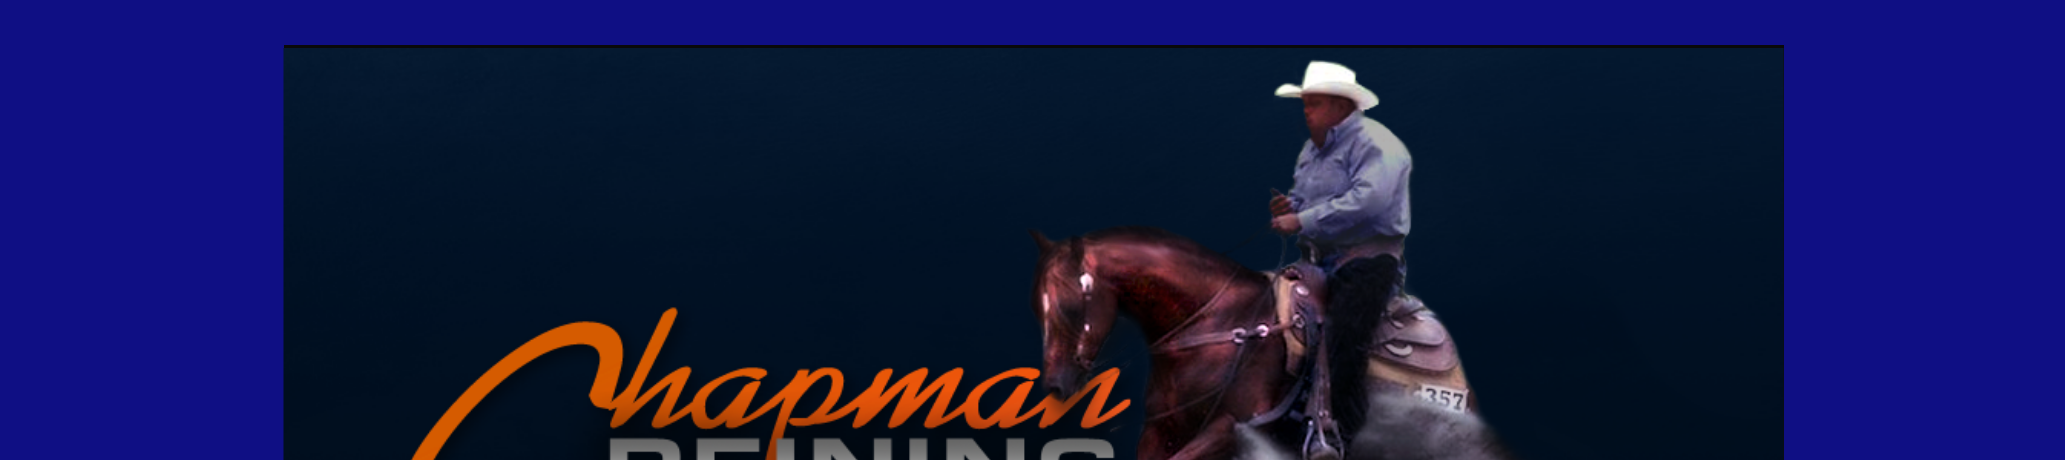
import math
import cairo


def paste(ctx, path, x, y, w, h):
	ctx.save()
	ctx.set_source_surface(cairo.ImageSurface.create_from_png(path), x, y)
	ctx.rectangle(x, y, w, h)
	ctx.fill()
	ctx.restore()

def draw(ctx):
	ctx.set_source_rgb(0.059, 0.059, 0.518)
	ctx.paint()
	ctx.set_source_rgb(0.059, 0.059, 0.059)
	ctx.rectangle(1783, 48, 1, 412)
	ctx.fill()
	ctx.set_source_rgb(0.039, 0.039, 0.039)
	ctx.rectangle(284, 45, 1500, 3)
	ctx.fill()
	paste(ctx, 'media/1.png', 283, 48, 1501, 412)


surface = cairo.ImageSurface(cairo.FORMAT_RGB24, 2065, 460)
ctx = cairo.Context(surface)
options = cairo.FontOptions()
options.set_hint_metrics(cairo.HINT_METRICS_OFF)
options.set_hint_style(cairo.HINT_STYLE_NONE)
ctx.set_font_options(options)
ctx.set_miter_limit(4)
draw(ctx)
surface.write_to_png('image.png')
